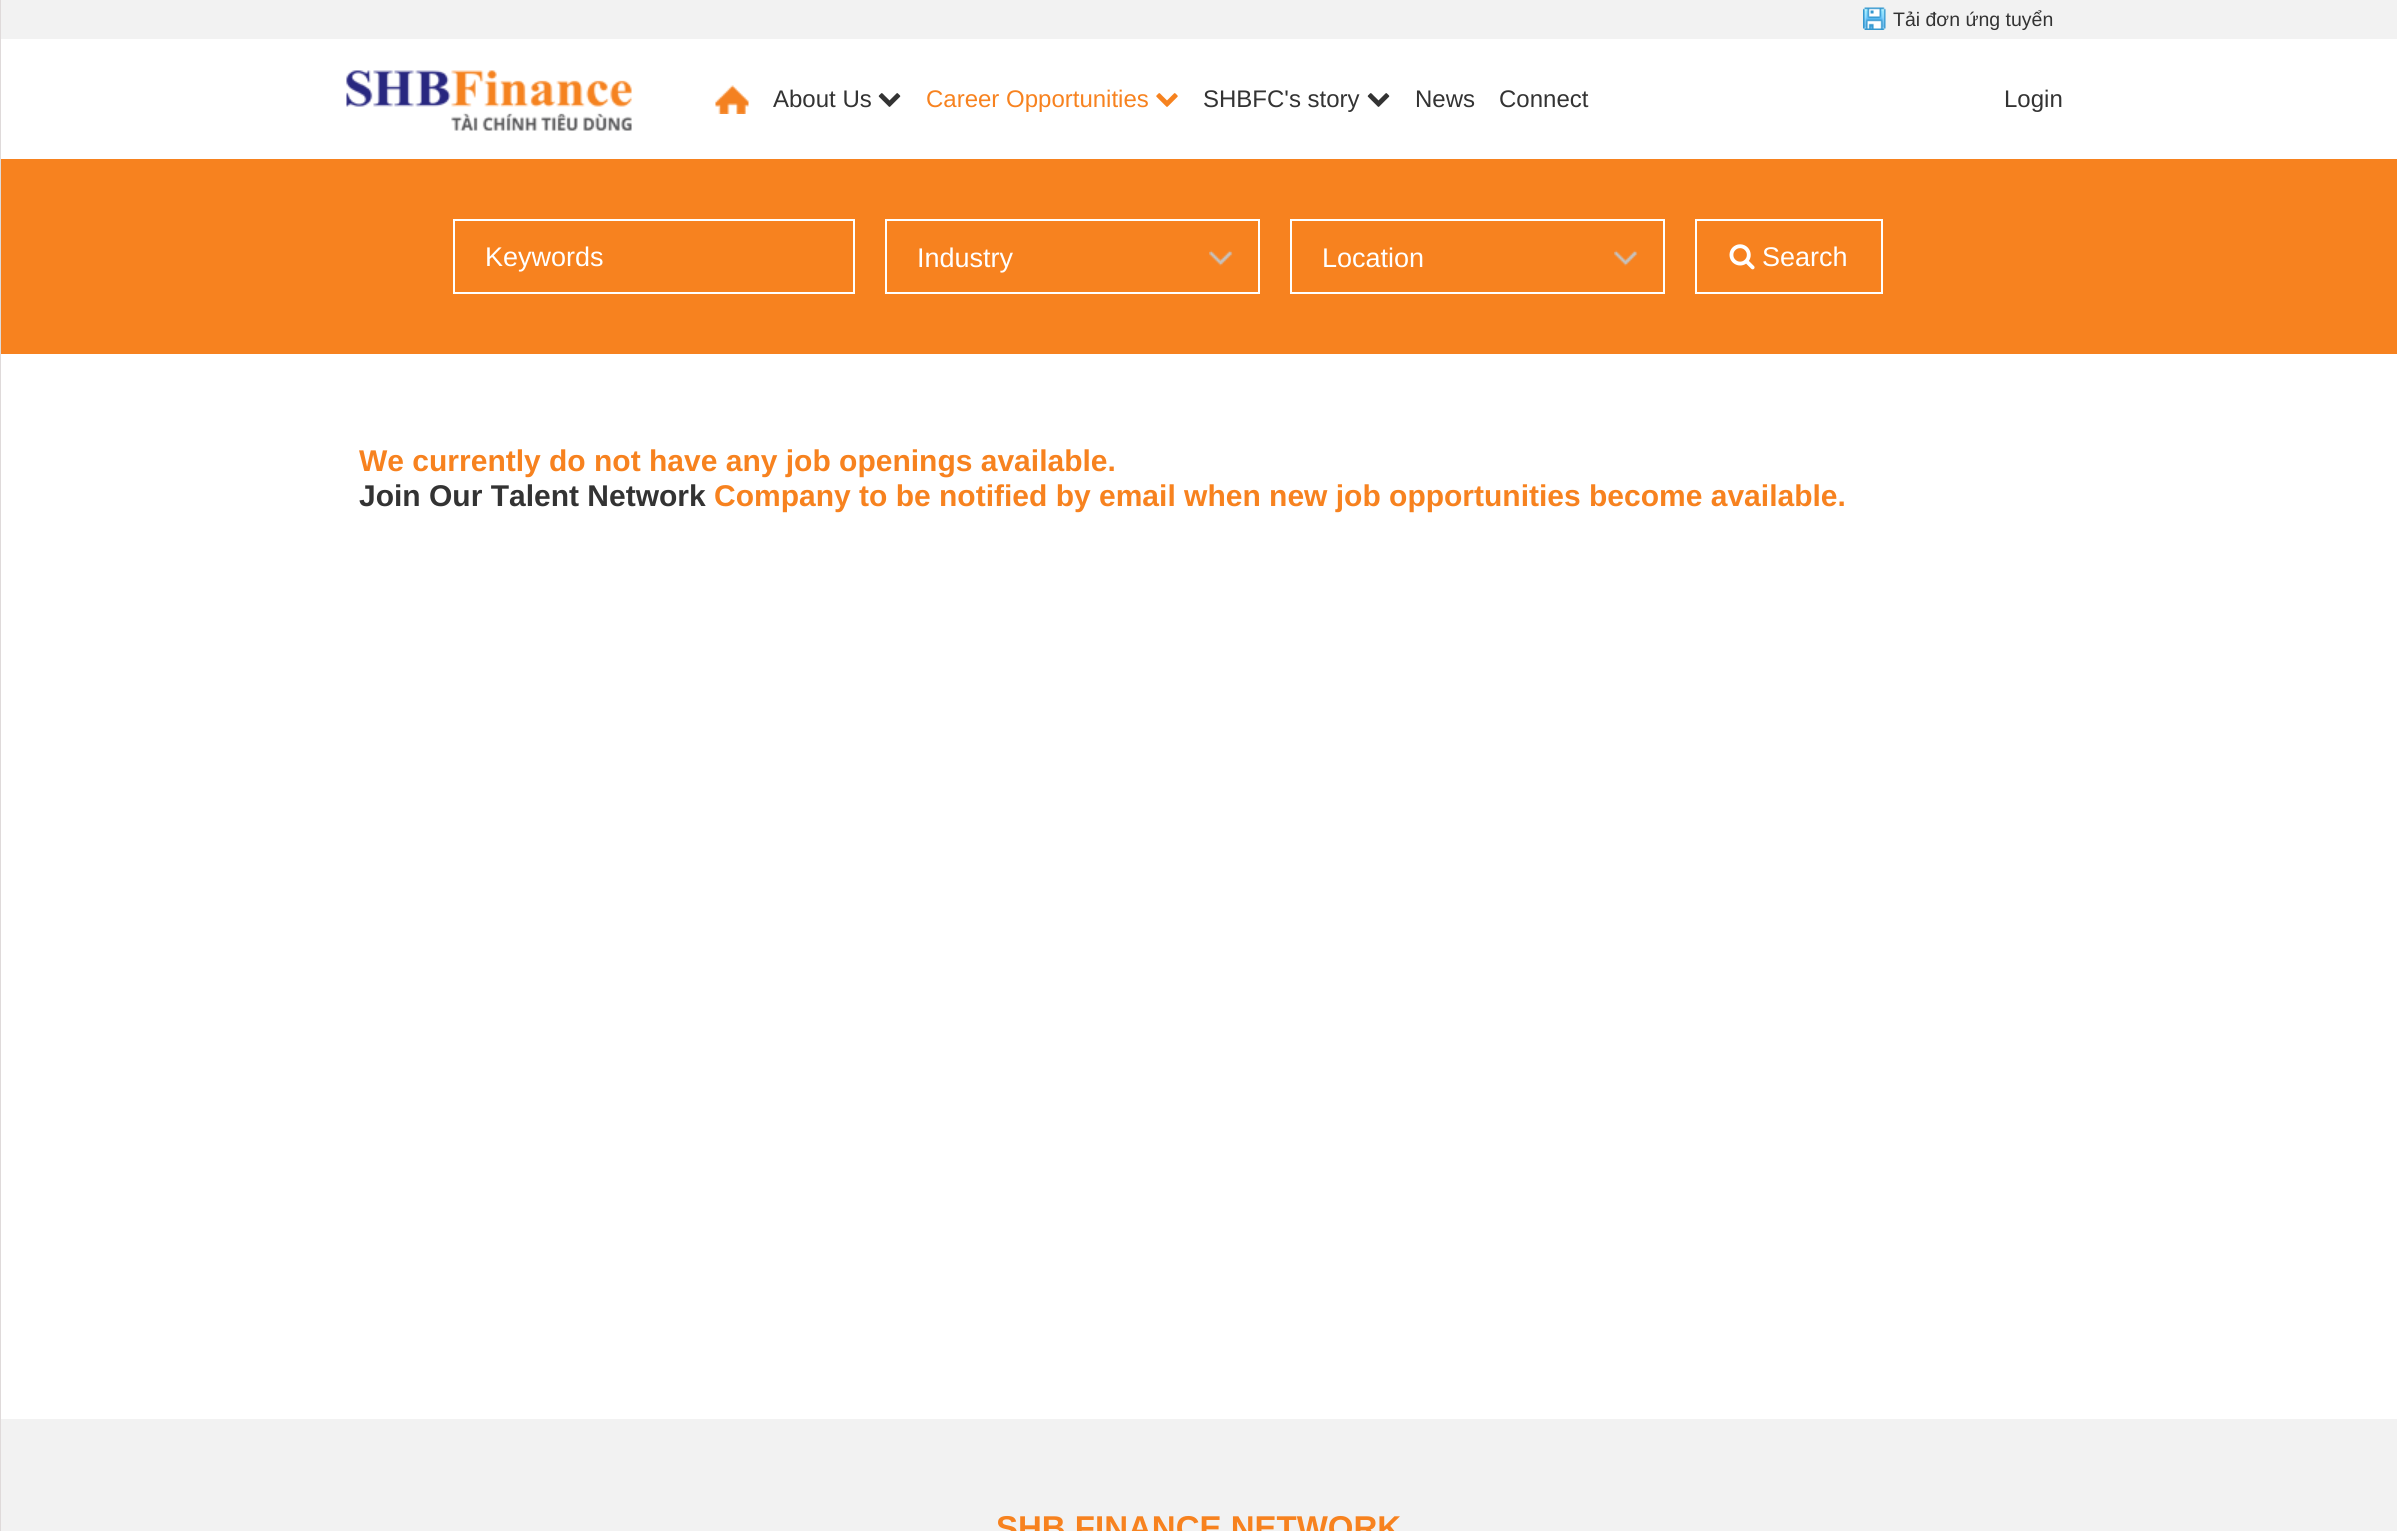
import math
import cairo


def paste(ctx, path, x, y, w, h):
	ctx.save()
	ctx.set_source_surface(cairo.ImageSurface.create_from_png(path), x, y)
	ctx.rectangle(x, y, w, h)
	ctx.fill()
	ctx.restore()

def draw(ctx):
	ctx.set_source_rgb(1, 1, 1)
	ctx.paint()
	ctx.set_source_rgb(0.875, 0.855, 0.855)
	ctx.rectangle(0, 0, 1, 1531)
	ctx.fill()
	ctx.set_source_rgb(0.949, 0.949, 0.949)
	ctx.rectangle(1, 0, 2396, 39)
	ctx.fill()
	paste(ctx, 'media/1.png', 1863, 7, 23, 23)
	ctx.select_font_face('Liberation Sans')
	ctx.set_font_size(19.5)
	ctx.set_source_rgb(0.2, 0.2, 0.2)
	ctx.move_to(1893, 26)
	ctx.show_text('Tải đơn ứng tuyển')
	paste(ctx, 'media/2.png', 346, 70, 286, 61)
	paste(ctx, 'media/3.png', 715, 85, 34, 29)
	ctx.set_font_size(24)
	ctx.move_to(773, 107)
	ctx.show_text('About Us')
	paste(ctx, 'media/4.png', 878, 93, 23, 14)
	ctx.set_source_rgb(0.965, 0.51, 0.122)
	ctx.move_to(926, 107)
	ctx.show_text('Career Opportunities')
	paste(ctx, 'media/5.png', 1156, 93, 22, 14)
	ctx.set_source_rgb(0.2, 0.2, 0.2)
	ctx.move_to(1203, 107)
	ctx.show_text('SHBFC\'s story')
	paste(ctx, 'media/4.png', 1367, 93, 23, 14)
	for x, y, s in [
		(1415, 107, 'News'),
		(1499, 107, 'Connect'),
		(2004, 107, 'Login'),
	]:
		ctx.move_to(x, y)
		ctx.show_text(s)
	ctx.set_source_rgb(0.965, 0.51, 0.122)
	ctx.rectangle(1, 159, 2396, 195)
	ctx.fill()
	ctx.rectangle(454, 220, 400, 73)
	ctx.set_source_rgb(1, 1, 1)
	ctx.stroke()
	ctx.set_font_size(27)
	ctx.move_to(485, 266)
	ctx.show_text('Keywords')
	ctx.rectangle(886, 220, 373, 73)
	ctx.stroke()
	ctx.move_to(917, 267)
	ctx.show_text('Industry')
	paste(ctx, 'media/6.png', 1209, 250, 24, 16)
	ctx.rectangle(1291, 220, 373, 73)
	ctx.stroke()
	ctx.move_to(1322, 267)
	ctx.show_text('Location')
	paste(ctx, 'media/7.png', 1614, 250, 24, 16)
	ctx.rectangle(1696, 220, 186, 73)
	ctx.stroke()
	paste(ctx, 'media/8.png', 1729, 244, 26, 26)
	ctx.move_to(1762, 266)
	ctx.show_text('Search')
	ctx.select_font_face('Liberation Sans', cairo.FONT_SLANT_NORMAL, cairo.FONT_WEIGHT_BOLD)
	ctx.set_font_size(30)
	ctx.set_source_rgb(0.965, 0.51, 0.122)
	ctx.move_to(359, 471)
	ctx.show_text('We currently do not have any job openings available.')
	ctx.set_source_rgb(0.2, 0.2, 0.2)
	ctx.move_to(359, 506)
	ctx.show_text('Join Our Talent Network')
	ctx.set_source_rgb(0.965, 0.51, 0.122)
	ctx.move_to(714, 506)
	ctx.show_text('Company to be notified by email when new job opportunities become available.')
	ctx.set_source_rgb(0.949, 0.949, 0.949)
	ctx.rectangle(1, 1419, 2396, 112)
	ctx.fill()
	ctx.set_font_size(33)
	ctx.set_source_rgb(0.965, 0.51, 0.122)
	ctx.move_to(996, 1539)
	ctx.show_text('SHB FINANCE NETWORK')


surface = cairo.ImageSurface(cairo.FORMAT_RGB24, 2397, 1531)
ctx = cairo.Context(surface)
options = cairo.FontOptions()
options.set_hint_metrics(cairo.HINT_METRICS_OFF)
options.set_hint_style(cairo.HINT_STYLE_NONE)
ctx.set_font_options(options)
ctx.set_miter_limit(4)
draw(ctx)
surface.write_to_png('image.png')
